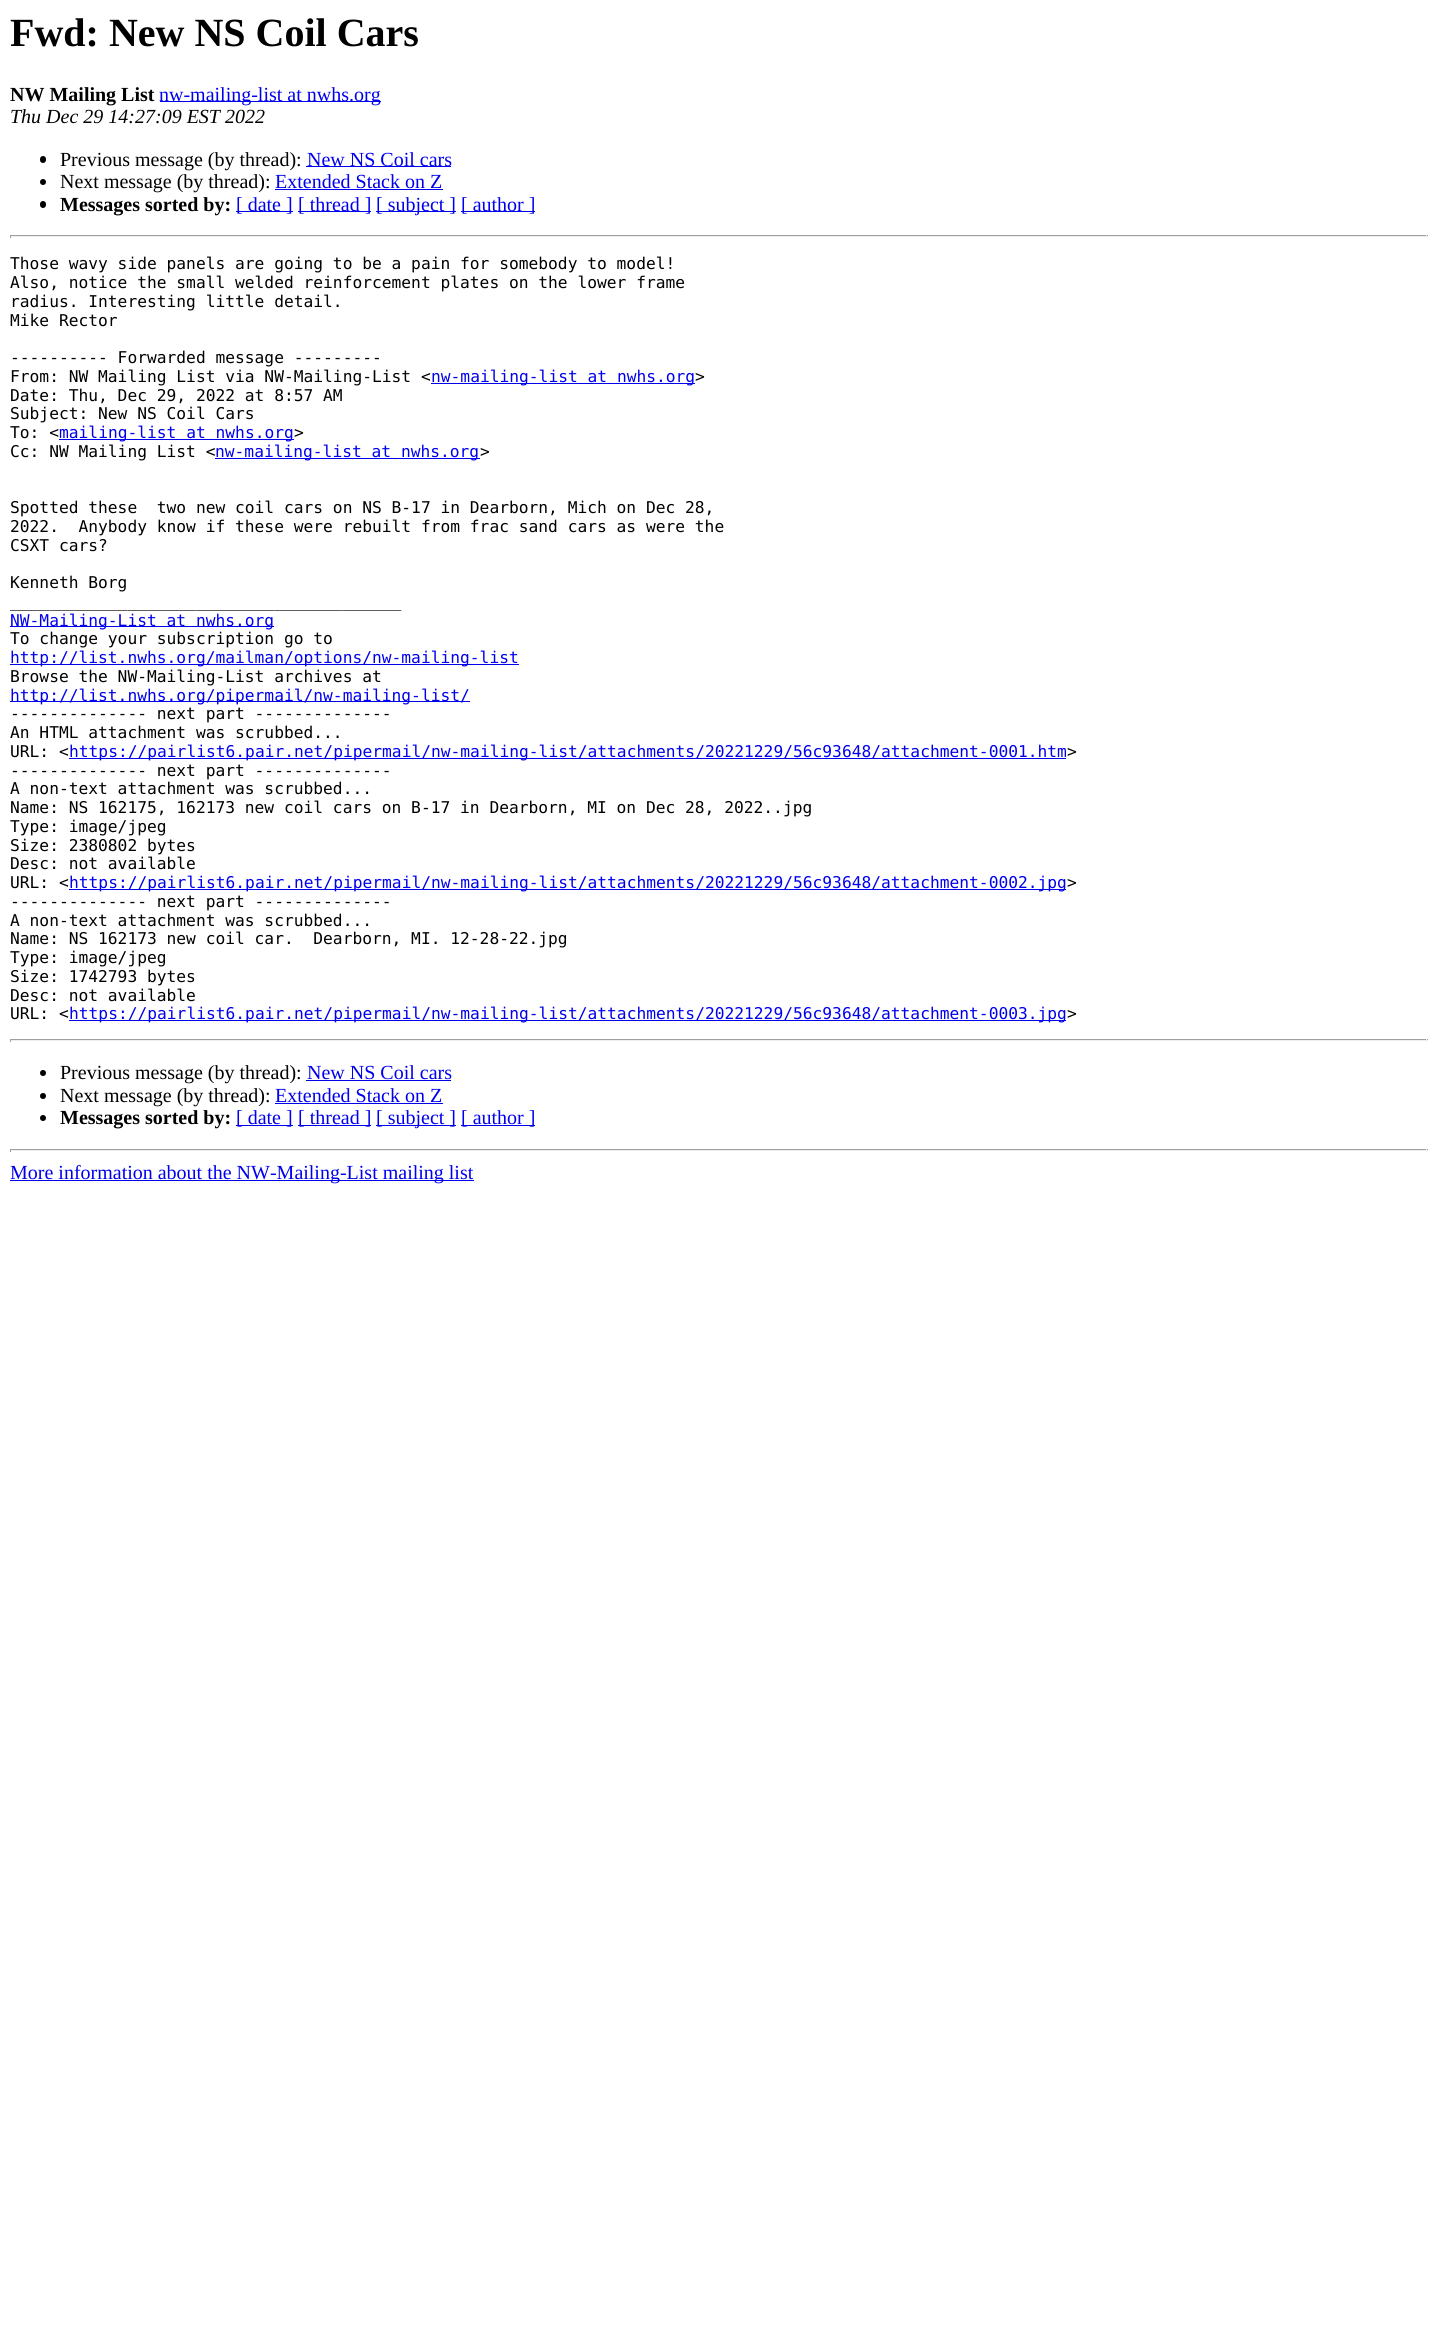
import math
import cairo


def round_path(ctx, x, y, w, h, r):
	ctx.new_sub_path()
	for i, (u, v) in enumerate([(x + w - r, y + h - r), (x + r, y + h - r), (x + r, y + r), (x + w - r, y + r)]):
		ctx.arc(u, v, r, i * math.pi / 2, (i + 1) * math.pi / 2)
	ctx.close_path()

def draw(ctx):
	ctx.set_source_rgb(1, 1, 1)
	ctx.paint()
	ctx.select_font_face('Liberation Serif', cairo.FONT_SLANT_NORMAL, cairo.FONT_WEIGHT_BOLD)
	ctx.set_font_size(40)
	ctx.set_source_rgb(0, 0, 0)
	ctx.move_to(10, 46)
	ctx.show_text('Fwd: New NS Coil Cars')
	ctx.set_font_size(20)
	ctx.move_to(10, 101)
	ctx.show_text('NW Mailing List')
	ctx.set_source_rgb(0, 0, 0.933)
	ctx.rectangle(160, 101, 221, 1)
	ctx.fill()
	ctx.select_font_face('Liberation Serif')
	ctx.move_to(159, 101)
	ctx.show_text('nw-mailing-list at nwhs.org')
	ctx.select_font_face('Liberation Serif', cairo.FONT_SLANT_ITALIC)
	ctx.set_source_rgb(0, 0, 0)
	ctx.move_to(10, 123)
	ctx.show_text('Thu Dec 29 14:27:09 EST 2022')
	round_path(ctx, 40, 156, 6, 7, 3)
	ctx.fill()
	ctx.select_font_face('Liberation Serif')
	ctx.move_to(60, 166)
	ctx.show_text('Previous message (by thread):')
	ctx.set_source_rgb(0, 0, 0.933)
	ctx.rectangle(306, 166, 145, 1)
	ctx.fill()
	ctx.move_to(307, 166)
	ctx.show_text('New NS Coil cars')
	ctx.set_source_rgb(0, 0, 0)
	ctx.new_path()
	ctx.arc(43, 182, 3, 0, 2 * math.pi)
	ctx.fill()
	ctx.move_to(60, 188)
	ctx.show_text('Next message (by thread):')
	ctx.set_source_rgb(0, 0, 0.933)
	ctx.move_to(275, 188)
	ctx.show_text('Extended Stack on Z')
	ctx.rectangle(275, 189, 168, 1)
	ctx.fill()
	ctx.set_source_rgb(0, 0, 0)
	round_path(ctx, 40, 201, 6, 7, 3)
	ctx.fill()
	ctx.select_font_face('Liberation Serif', cairo.FONT_SLANT_NORMAL, cairo.FONT_WEIGHT_BOLD)
	ctx.move_to(60, 211)
	ctx.show_text('Messages sorted by:')
	ctx.set_source_rgb(0, 0, 0.933)
	ctx.rectangle(236, 211, 57, 1)
	ctx.fill()
	ctx.select_font_face('Liberation Serif')
	ctx.move_to(236, 211)
	ctx.show_text('[ date ]')
	ctx.rectangle(298, 211, 73, 1)
	ctx.fill()
	ctx.move_to(298, 211)
	ctx.show_text('[ thread ]')
	ctx.rectangle(376, 211, 80, 1)
	ctx.fill()
	ctx.move_to(376, 211)
	ctx.show_text('[ subject ]')
	ctx.rectangle(461, 211, 74, 1)
	ctx.fill()
	ctx.move_to(461, 211)
	ctx.show_text('[ author ]')
	ctx.set_source_rgb(0.624, 0.624, 0.624)
	ctx.rectangle(10, 235, 1418, 1)
	ctx.fill()
	ctx.set_source_rgb(0.933, 0.933, 0.933)
	ctx.rectangle(1426, 235, 1, 3)
	ctx.rectangle(10, 236, 1418, 1)
	ctx.fill()
	ctx.set_source_rgb(0.624, 0.624, 0.624)
	ctx.rectangle(10, 235, 1, 3)
	ctx.fill()
	ctx.select_font_face('DejaVu Sans Mono')
	ctx.set_font_size(16.25)
	ctx.set_source_rgb(0, 0, 0)
	for x, y, s in [
		(10, 269, 'Those wavy side panels are going to be a pain for somebody to model!'),
		(10, 288, 'Also, notice the small welded reinforcement plates on the lower frame'),
		(10, 307, 'radius. Interesting little detail.'),
		(10, 326, 'Mike Rector'),
		(10, 363, '---------- Forwarded message ---------'),
		(10, 382, 'From: NW Mailing List via NW-Mailing-List <'),
	]:
		ctx.move_to(x, y)
		ctx.show_text(s)
	ctx.set_source_rgb(0, 0, 0.933)
	ctx.rectangle(431, 383, 264, 1)
	ctx.fill()
	ctx.move_to(431, 382)
	ctx.show_text('nw-mailing-list at nwhs.org')
	ctx.set_source_rgb(0, 0, 0)
	for x, y, s in [
		(695, 382, '>'),
		(10, 401, 'Date: Thu, Dec 29, 2022 at 8:57 AM'),
		(10, 419, 'Subject: New NS Coil Cars'),
		(10, 438, 'To: <'),
	]:
		ctx.move_to(x, y)
		ctx.show_text(s)
	ctx.set_source_rgb(0, 0, 0.933)
	ctx.rectangle(59, 439, 235, 1)
	ctx.fill()
	ctx.move_to(59, 438)
	ctx.show_text('mailing-list at nwhs.org')
	ctx.set_source_rgb(0, 0, 0)
	ctx.move_to(294, 438)
	ctx.show_text('>')
	ctx.move_to(10, 457)
	ctx.show_text('Cc: NW Mailing List <')
	ctx.set_source_rgb(0, 0, 0.933)
	ctx.rectangle(215, 458, 265, 1)
	ctx.fill()
	ctx.move_to(215, 457)
	ctx.show_text('nw-mailing-list at nwhs.org')
	ctx.set_source_rgb(0, 0, 0)
	for x, y, s in [
		(480, 457, '>'),
		(10, 513, 'Spotted these  two new coil cars on NS B-17 in Dearborn, Mich on Dec 28,'),
		(10, 532, '2022.  Anybody know if these were rebuilt from frac sand cars as were the'),
		(10, 551, 'CSXT cars?'),
		(10, 588, 'Kenneth Borg'),
		(10, 607, '________________________________________'),
	]:
		ctx.move_to(x, y)
		ctx.show_text(s)
	ctx.set_source_rgb(0, 0, 0.933)
	ctx.rectangle(10, 626, 264, 1)
	ctx.fill()
	ctx.move_to(10, 626)
	ctx.show_text('NW-Mailing-List at nwhs.org')
	ctx.set_source_rgb(0, 0, 0)
	ctx.move_to(10, 644)
	ctx.show_text('To change your subscription go to')
	ctx.set_source_rgb(0, 0, 0.933)
	ctx.rectangle(10, 664, 509, 1)
	ctx.fill()
	ctx.move_to(10, 663)
	ctx.show_text('http://list.nwhs.org/mailman/options/nw-mailing-list')
	ctx.set_source_rgb(0, 0, 0)
	ctx.move_to(10, 682)
	ctx.show_text('Browse the NW-Mailing-List archives at')
	ctx.set_source_rgb(0, 0, 0.933)
	ctx.rectangle(10, 701, 460, 1)
	ctx.fill()
	ctx.move_to(10, 701)
	ctx.show_text('http://list.nwhs.org/pipermail/nw-mailing-list/')
	ctx.set_source_rgb(0, 0, 0)
	for x, y, s in [
		(10, 719, '-------------- next part --------------'),
		(10, 738, 'An HTML attachment was scrubbed...'),
		(10, 757, 'URL: <'),
	]:
		ctx.move_to(x, y)
		ctx.show_text(s)
	ctx.set_source_rgb(0, 0, 0.933)
	ctx.rectangle(69, 758, 997, 1)
	ctx.fill()
	ctx.move_to(69, 757)
	ctx.show_text('https://pairlist6.pair.net/pipermail/nw-mailing-list/attachments/20221229/56c93648/attachment-0001.htm')
	ctx.set_source_rgb(0, 0, 0)
	for x, y, s in [
		(1067, 757, '>'),
		(10, 776, '-------------- next part --------------'),
		(10, 794, 'A non-text attachment was scrubbed...'),
		(10, 813, 'Name: NS 162175, 162173 new coil cars on B-17 in Dearborn, MI on Dec 28, 2022..jpg'),
		(10, 832, 'Type: image/jpeg'),
		(10, 851, 'Size: 2380802 bytes'),
		(10, 869, 'Desc: not available'),
		(10, 888, 'URL: <'),
	]:
		ctx.move_to(x, y)
		ctx.show_text(s)
	ctx.set_source_rgb(0, 0, 0.933)
	ctx.rectangle(69, 889, 997, 1)
	ctx.fill()
	ctx.move_to(69, 888)
	ctx.show_text('https://pairlist6.pair.net/pipermail/nw-mailing-list/attachments/20221229/56c93648/attachment-0002.jpg')
	ctx.set_source_rgb(0, 0, 0)
	for x, y, s in [
		(1067, 888, '>'),
		(10, 907, '-------------- next part --------------'),
		(10, 926, 'A non-text attachment was scrubbed...'),
		(10, 944, 'Name: NS 162173 new coil car.  Dearborn, MI. 12-28-22.jpg'),
		(10, 963, 'Type: image/jpeg'),
		(10, 982, 'Size: 1742793 bytes'),
		(10, 1001, 'Desc: not available'),
		(10, 1019, 'URL: <'),
	]:
		ctx.move_to(x, y)
		ctx.show_text(s)
	ctx.set_source_rgb(0, 0, 0.933)
	ctx.rectangle(69, 1020, 997, 1)
	ctx.fill()
	ctx.move_to(69, 1019)
	ctx.show_text('https://pairlist6.pair.net/pipermail/nw-mailing-list/attachments/20221229/56c93648/attachment-0003.jpg')
	ctx.set_source_rgb(0, 0, 0)
	ctx.move_to(1067, 1019)
	ctx.show_text('>')
	ctx.set_source_rgb(0.624, 0.624, 0.624)
	ctx.rectangle(10, 1039, 1418, 1)
	ctx.fill()
	ctx.set_source_rgb(0.933, 0.933, 0.933)
	ctx.rectangle(1426, 1039, 1, 3)
	ctx.rectangle(10, 1040, 1418, 1)
	ctx.fill()
	ctx.set_source_rgb(0.624, 0.624, 0.624)
	ctx.rectangle(10, 1039, 1, 3)
	ctx.fill()
	ctx.set_source_rgb(0, 0, 0)
	ctx.arc(43, 1073, 3, 0, 2 * math.pi)
	ctx.fill()
	ctx.select_font_face('Liberation Serif')
	ctx.set_font_size(20)
	ctx.move_to(60, 1079)
	ctx.show_text('Previous message (by thread):')
	ctx.set_source_rgb(0, 0, 0.933)
	ctx.move_to(307, 1079)
	ctx.show_text('New NS Coil cars')
	ctx.rectangle(306, 1080, 145, 1)
	ctx.fill()
	ctx.set_source_rgb(0, 0, 0)
	ctx.arc(43, 1096, 3, 0, 2 * math.pi)
	ctx.fill()
	ctx.move_to(60, 1102)
	ctx.show_text('Next message (by thread):')
	ctx.set_source_rgb(0, 0, 0.933)
	ctx.move_to(275, 1102)
	ctx.show_text('Extended Stack on Z')
	ctx.rectangle(275, 1103, 168, 1)
	ctx.fill()
	ctx.set_source_rgb(0, 0, 0)
	ctx.arc(43, 1118, 3, 0, 2 * math.pi)
	ctx.fill()
	ctx.select_font_face('Liberation Serif', cairo.FONT_SLANT_NORMAL, cairo.FONT_WEIGHT_BOLD)
	ctx.move_to(60, 1124)
	ctx.show_text('Messages sorted by:')
	ctx.set_source_rgb(0, 0, 0.933)
	ctx.rectangle(236, 1125, 57, 1)
	ctx.fill()
	ctx.select_font_face('Liberation Serif')
	ctx.move_to(236, 1124)
	ctx.show_text('[ date ]')
	ctx.rectangle(298, 1125, 73, 1)
	ctx.fill()
	ctx.move_to(298, 1124)
	ctx.show_text('[ thread ]')
	ctx.rectangle(376, 1125, 80, 1)
	ctx.fill()
	ctx.move_to(376, 1124)
	ctx.show_text('[ subject ]')
	ctx.rectangle(461, 1125, 74, 1)
	ctx.fill()
	ctx.move_to(461, 1124)
	ctx.show_text('[ author ]')
	ctx.set_source_rgb(0.624, 0.624, 0.624)
	ctx.rectangle(10, 1149, 1418, 1)
	ctx.fill()
	ctx.set_source_rgb(0.933, 0.933, 0.933)
	ctx.rectangle(1426, 1149, 1, 3)
	ctx.rectangle(10, 1150, 1418, 1)
	ctx.fill()
	ctx.set_source_rgb(0.624, 0.624, 0.624)
	ctx.rectangle(10, 1149, 1, 3)
	ctx.fill()
	ctx.set_source_rgb(0, 0, 0.933)
	ctx.rectangle(10, 1180, 464, 1)
	ctx.fill()
	ctx.move_to(10, 1179)
	ctx.show_text('More information about the NW-Mailing-List mailing list')


surface = cairo.ImageSurface(cairo.FORMAT_RGB24, 1437, 2341)
ctx = cairo.Context(surface)
options = cairo.FontOptions()
options.set_hint_metrics(cairo.HINT_METRICS_OFF)
options.set_hint_style(cairo.HINT_STYLE_NONE)
ctx.set_font_options(options)
ctx.set_miter_limit(4)
draw(ctx)
surface.write_to_png('image.png')
